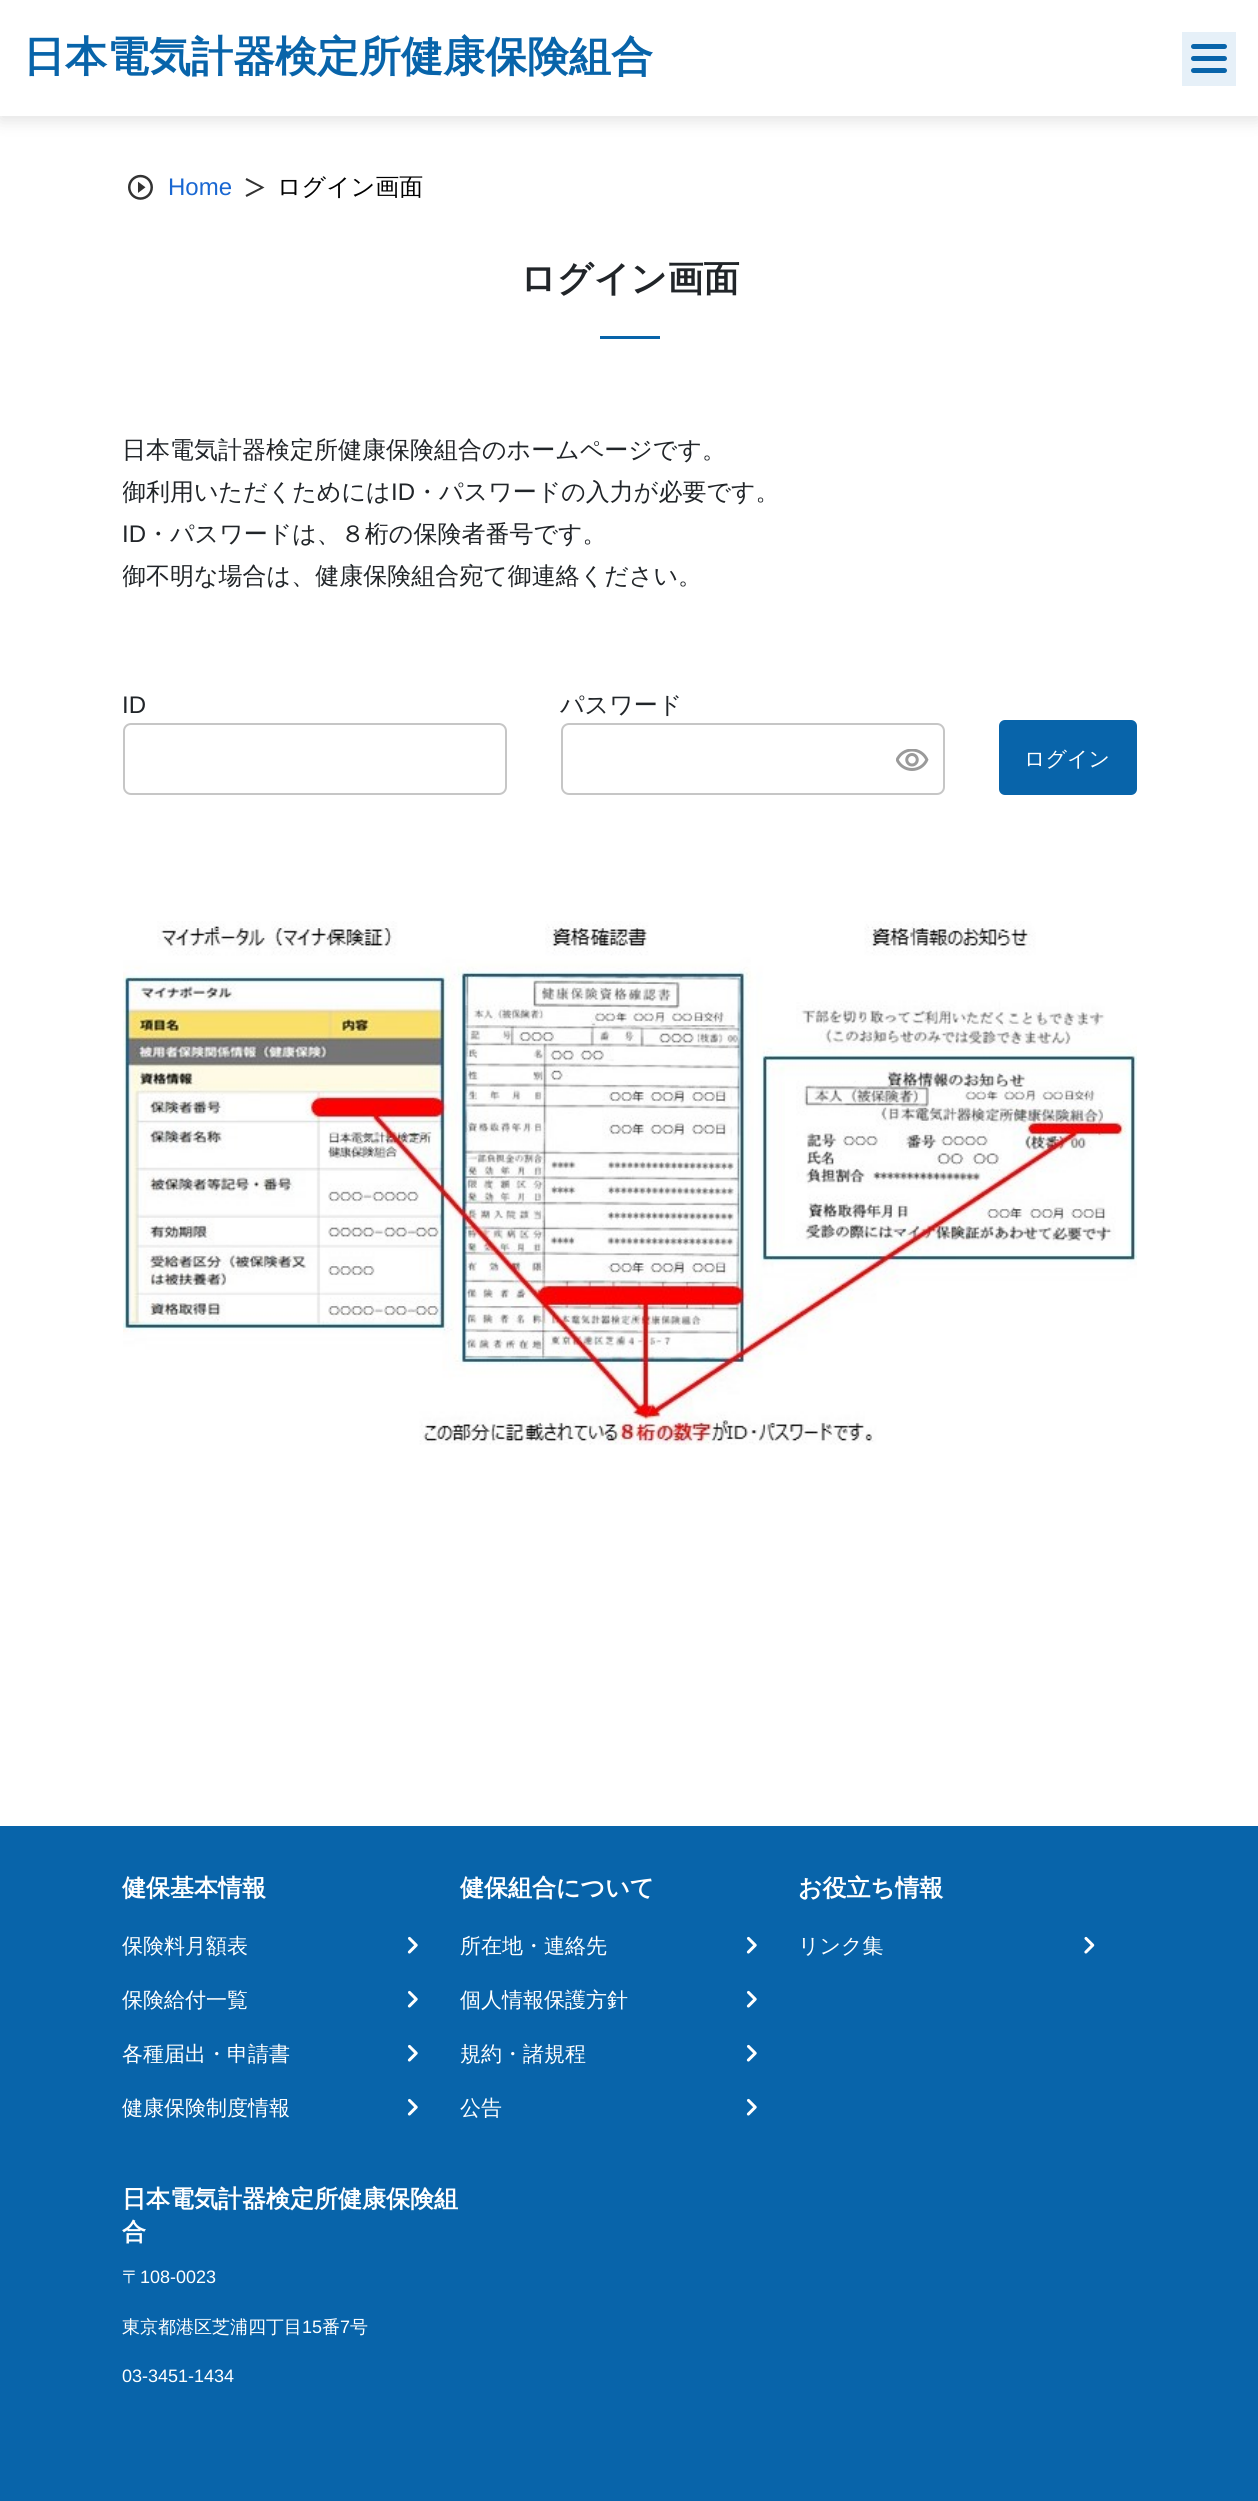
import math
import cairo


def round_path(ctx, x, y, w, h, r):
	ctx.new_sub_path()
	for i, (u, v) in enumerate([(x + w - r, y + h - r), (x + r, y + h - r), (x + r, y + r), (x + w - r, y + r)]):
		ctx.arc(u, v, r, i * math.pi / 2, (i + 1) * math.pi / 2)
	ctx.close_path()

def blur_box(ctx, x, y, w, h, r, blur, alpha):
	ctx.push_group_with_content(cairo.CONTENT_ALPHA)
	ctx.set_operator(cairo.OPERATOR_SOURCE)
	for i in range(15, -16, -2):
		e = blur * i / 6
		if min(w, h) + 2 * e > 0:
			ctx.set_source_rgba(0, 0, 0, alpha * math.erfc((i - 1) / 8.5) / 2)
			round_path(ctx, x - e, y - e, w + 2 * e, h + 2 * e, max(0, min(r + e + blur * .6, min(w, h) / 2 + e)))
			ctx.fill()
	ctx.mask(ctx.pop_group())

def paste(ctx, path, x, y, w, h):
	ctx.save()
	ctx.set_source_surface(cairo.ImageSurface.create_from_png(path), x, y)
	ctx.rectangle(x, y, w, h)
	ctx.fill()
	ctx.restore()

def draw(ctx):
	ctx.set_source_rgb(1, 1, 1)
	ctx.paint()
	ctx.save()
	ctx.set_fill_rule(cairo.FILL_RULE_EVEN_ODD)
	ctx.new_path()
	ctx.move_to(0, 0)
	ctx.line_to(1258, 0)
	ctx.line_to(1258, 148)
	ctx.line_to(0, 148)
	ctx.close_path()
	ctx.move_to(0, 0)
	ctx.line_to(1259, 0)
	ctx.line_to(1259, 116)
	ctx.line_to(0, 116)
	ctx.close_path()
	ctx.clip()
	ctx.set_source_rgb(0, 0, 0)
	blur_box(ctx, 0, 5, 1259, 115, 0, 9, 0.12)
	ctx.restore()
	ctx.select_font_face('WenQuanYi Zen Hei', cairo.FONT_SLANT_NORMAL, cairo.FONT_WEIGHT_BOLD)
	ctx.set_font_size(42)
	ctx.set_source_rgb(0.035, 0.392, 0.667)
	ctx.move_to(23, 71)
	ctx.show_text('日本電気計器検定所健康保険組合')
	ctx.set_source_rgb(0.902, 0.941, 0.969)
	ctx.rectangle(1182, 32, 54, 54)
	ctx.fill()
	ctx.set_source_rgb(0.035, 0.392, 0.667)
	round_path(ctx, 1191, 44, 36, 5, 2.5)
	ctx.fill()
	round_path(ctx, 1191, 56, 36, 5, 2.5)
	ctx.fill()
	round_path(ctx, 1191, 68, 36, 5, 2.5)
	ctx.fill()
	paste(ctx, 'media/1.png', 128, 174, 25, 26)
	ctx.select_font_face('Liberation Sans')
	ctx.set_font_size(24)
	ctx.set_source_rgb(0.098, 0.404, 0.824)
	ctx.move_to(168, 195)
	ctx.show_text('Home')
	ctx.set_source_rgb(0.2, 0.2, 0.2)
	ctx.new_path()
	ctx.move_to(264.5, 187.5)
	ctx.line_to(246.5, 178)
	ctx.line_to(245.5, 180)
	ctx.line_to(260.5, 187.5)
	ctx.line_to(245.5, 195)
	ctx.line_to(246.5, 197)
	ctx.close_path()
	ctx.fill()
	ctx.select_font_face('WenQuanYi Zen Hei Medium')
	ctx.set_source_rgb(0, 0, 0)
	ctx.move_to(277, 195)
	ctx.show_text('ログイン画面')
	ctx.select_font_face('WenQuanYi Zen Hei', cairo.FONT_SLANT_NORMAL, cairo.FONT_WEIGHT_BOLD)
	ctx.set_font_size(36)
	ctx.set_source_rgb(0.129, 0.145, 0.161)
	ctx.move_to(520, 291)
	ctx.show_text('ログイン画面')
	ctx.set_source_rgb(0.035, 0.392, 0.667)
	ctx.rectangle(600, 336, 60, 3)
	ctx.fill()
	ctx.select_font_face('WenQuanYi Zen Hei Medium')
	ctx.set_font_size(24)
	ctx.set_source_rgb(0.129, 0.145, 0.161)
	ctx.move_to(122, 458)
	ctx.show_text('日本電気計器検定所健康保険組合のホームページです。')
	ctx.save()
	ctx.rectangle(123, 152, 1014, 1443)
	ctx.clip()
	ctx.move_to(122, 500)
	ctx.show_text('御利用いただくためには')
	ctx.restore()
	ctx.select_font_face('Liberation Sans')
	ctx.move_to(391, 500)
	ctx.show_text('ID')
	ctx.select_font_face('WenQuanYi Zen Hei Medium')
	ctx.move_to(415, 500)
	ctx.show_text('・パスワードの入力が必要です。')
	ctx.select_font_face('Liberation Sans')
	ctx.move_to(122, 542)
	ctx.show_text('ID')
	ctx.select_font_face('WenQuanYi Zen Hei Medium')
	ctx.move_to(146, 542)
	ctx.show_text('・パスワードは、８桁の保険者番号です。')
	ctx.save()
	ctx.rectangle(123, 152, 1014, 1443)
	ctx.clip()
	ctx.move_to(122, 584)
	ctx.show_text('御不明な場合は、健康保険組合宛て御連絡ください。')
	ctx.restore()
	ctx.select_font_face('Liberation Sans')
	ctx.move_to(122, 713)
	ctx.show_text('ID')
	round_path(ctx, 124, 724, 382, 70, 7)
	ctx.set_source_rgb(0.776, 0.776, 0.776)
	ctx.stroke()
	ctx.select_font_face('WenQuanYi Zen Hei Medium')
	ctx.set_source_rgb(0.129, 0.145, 0.161)
	ctx.move_to(560, 713)
	ctx.show_text('パスワード')
	round_path(ctx, 562, 724, 382, 70, 7)
	ctx.set_source_rgb(0.776, 0.776, 0.776)
	ctx.stroke()
	paste(ctx, 'media/2.png', 896, 749, 33, 22)
	ctx.set_source_rgb(0.035, 0.392, 0.667)
	round_path(ctx, 999, 720, 138, 75, 6)
	ctx.fill()
	ctx.set_font_size(21)
	ctx.set_source_rgb(1, 1, 1)
	ctx.move_to(1024, 766)
	ctx.show_text('ログイン')
	paste(ctx, 'media/3.png', 123, 921, 1014, 524)
	ctx.set_source_rgb(0.035, 0.392, 0.667)
	ctx.rectangle(0, 1826, 1258, 675)
	ctx.fill()
	ctx.select_font_face('WenQuanYi Zen Hei', cairo.FONT_SLANT_NORMAL, cairo.FONT_WEIGHT_BOLD)
	ctx.set_font_size(24)
	ctx.set_source_rgb(1, 1, 1)
	ctx.move_to(122, 1896)
	ctx.show_text('健保基本情報')
	ctx.select_font_face('WenQuanYi Zen Hei Medium')
	ctx.set_font_size(21)
	ctx.move_to(122, 1953)
	ctx.show_text('保険料月額表')
	paste(ctx, 'media/4.png', 407, 1936, 11, 18)
	ctx.move_to(122, 2007)
	ctx.show_text('保険給付一覧')
	paste(ctx, 'media/4.png', 407, 1990, 11, 18)
	ctx.move_to(122, 2061)
	ctx.show_text('各種届出・申請書')
	paste(ctx, 'media/4.png', 407, 2044, 11, 18)
	ctx.move_to(122, 2115)
	ctx.show_text('健康保険制度情報')
	paste(ctx, 'media/4.png', 407, 2098, 11, 18)
	ctx.select_font_face('WenQuanYi Zen Hei', cairo.FONT_SLANT_NORMAL, cairo.FONT_WEIGHT_BOLD)
	ctx.set_font_size(24)
	ctx.move_to(460, 1896)
	ctx.show_text('健保組合について')
	ctx.select_font_face('WenQuanYi Zen Hei Medium')
	ctx.set_font_size(21)
	ctx.move_to(460, 1953)
	ctx.show_text('所在地・連絡先')
	paste(ctx, 'media/4.png', 746, 1936, 11, 18)
	ctx.move_to(460, 2007)
	ctx.show_text('個人情報保護方針')
	paste(ctx, 'media/4.png', 746, 1990, 11, 18)
	ctx.move_to(460, 2061)
	ctx.show_text('規約・諸規程')
	paste(ctx, 'media/4.png', 746, 2044, 11, 18)
	ctx.move_to(460, 2115)
	ctx.show_text('公告')
	paste(ctx, 'media/4.png', 746, 2098, 11, 18)
	ctx.select_font_face('WenQuanYi Zen Hei', cairo.FONT_SLANT_NORMAL, cairo.FONT_WEIGHT_BOLD)
	ctx.set_font_size(24)
	ctx.move_to(798, 1896)
	ctx.show_text('お役立ち情報')
	ctx.select_font_face('WenQuanYi Zen Hei Medium')
	ctx.set_font_size(21)
	ctx.move_to(798, 1953)
	ctx.show_text('リンク集')
	paste(ctx, 'media/5.png', 1084, 1936, 11, 18)
	ctx.select_font_face('WenQuanYi Zen Hei', cairo.FONT_SLANT_NORMAL, cairo.FONT_WEIGHT_BOLD)
	ctx.set_font_size(24)
	ctx.move_to(122, 2207)
	ctx.show_text('日本電気計器検定所健康保険組')
	ctx.move_to(122, 2240)
	ctx.show_text('合')
	ctx.select_font_face('WenQuanYi Zen Hei Medium')
	ctx.set_font_size(18)
	ctx.move_to(122, 2283)
	ctx.show_text('〒')
	ctx.select_font_face('Liberation Sans')
	ctx.move_to(140, 2283)
	ctx.show_text('108-0023')
	ctx.select_font_face('WenQuanYi Zen Hei Medium')
	ctx.move_to(122, 2333)
	ctx.show_text('東京都港区芝浦四丁目')
	ctx.select_font_face('Liberation Sans')
	ctx.move_to(302, 2333)
	ctx.show_text('15')
	ctx.select_font_face('WenQuanYi Zen Hei Medium')
	ctx.move_to(322, 2333)
	ctx.show_text('番')
	ctx.select_font_face('Liberation Sans')
	ctx.move_to(340, 2333)
	ctx.show_text('7')
	ctx.select_font_face('WenQuanYi Zen Hei Medium')
	ctx.move_to(350, 2333)
	ctx.show_text('号')
	ctx.select_font_face('Liberation Sans')
	ctx.move_to(122, 2382)
	ctx.show_text('03-3451-1434')


surface = cairo.ImageSurface(cairo.FORMAT_RGB24, 1258, 2501)
ctx = cairo.Context(surface)
options = cairo.FontOptions()
options.set_hint_metrics(cairo.HINT_METRICS_OFF)
options.set_hint_style(cairo.HINT_STYLE_NONE)
ctx.set_font_options(options)
ctx.set_miter_limit(4)
draw(ctx)
surface.write_to_png('image.png')
